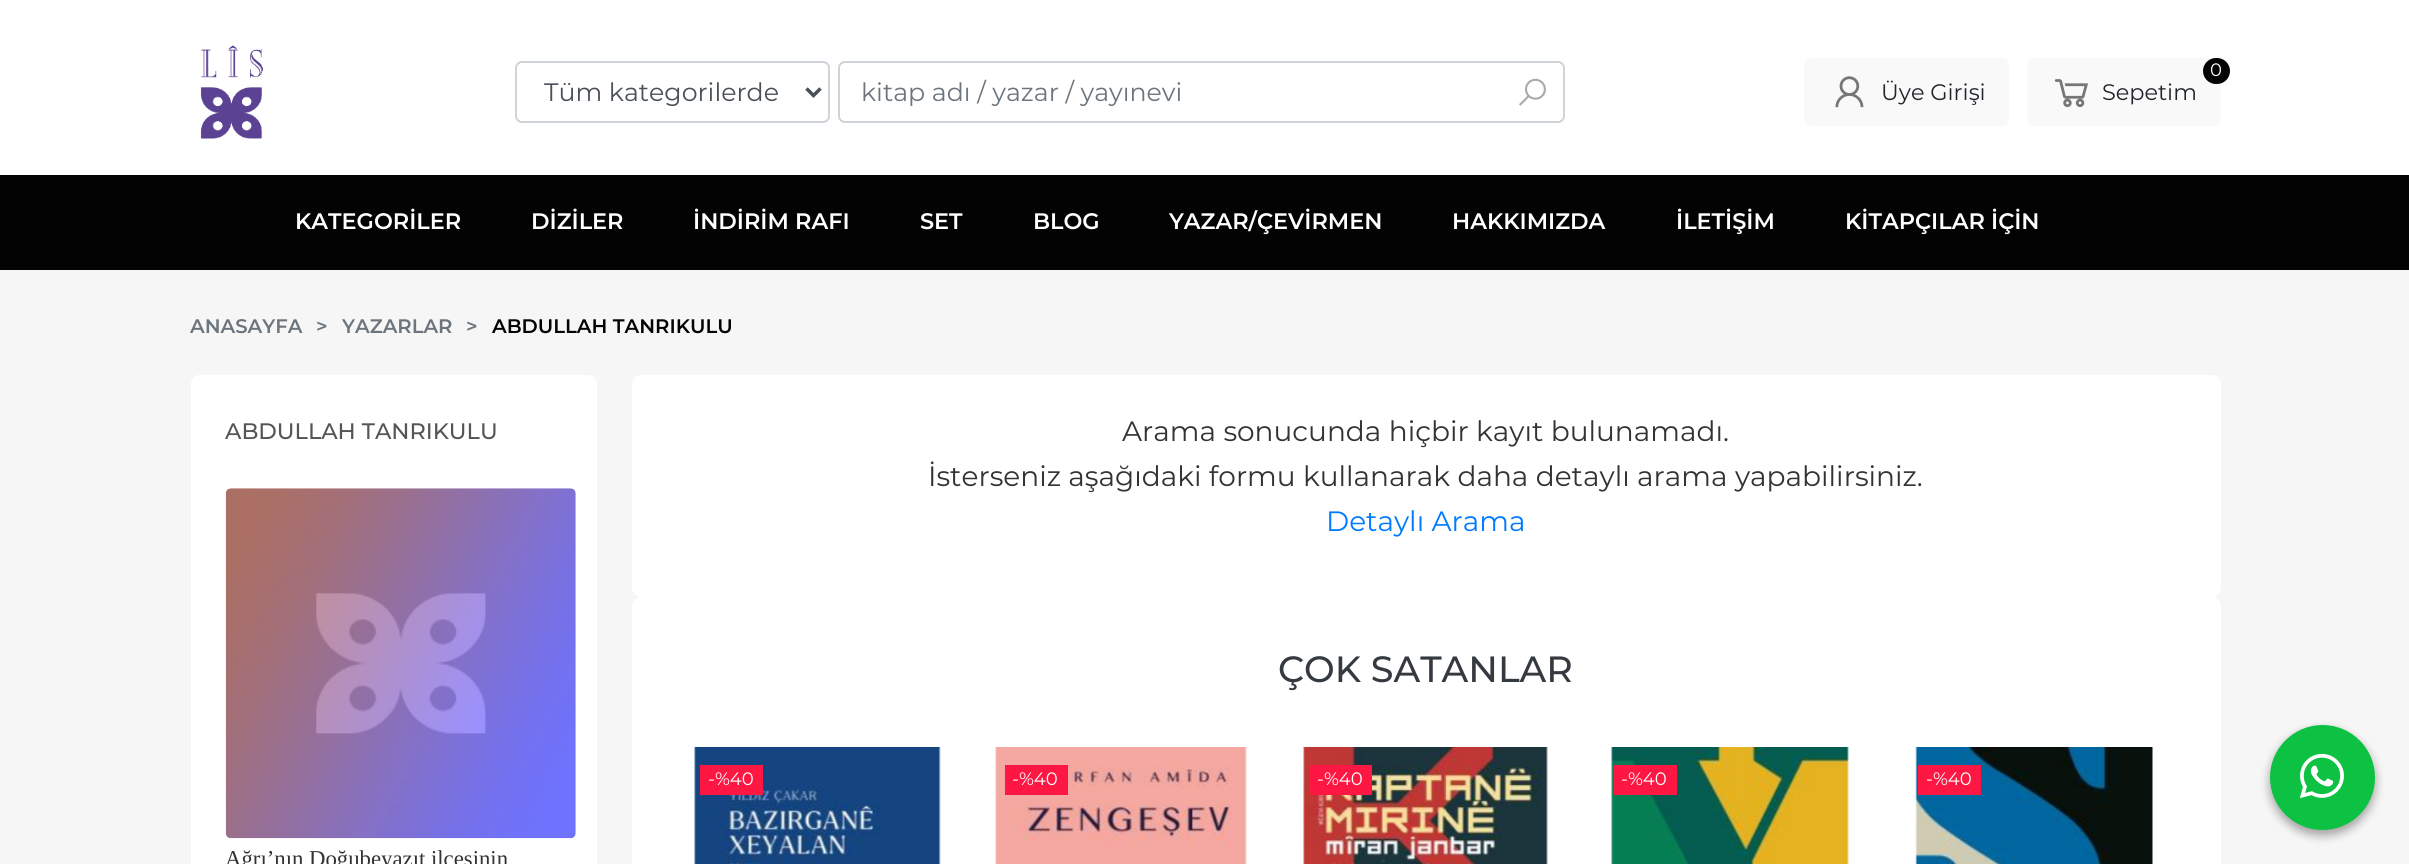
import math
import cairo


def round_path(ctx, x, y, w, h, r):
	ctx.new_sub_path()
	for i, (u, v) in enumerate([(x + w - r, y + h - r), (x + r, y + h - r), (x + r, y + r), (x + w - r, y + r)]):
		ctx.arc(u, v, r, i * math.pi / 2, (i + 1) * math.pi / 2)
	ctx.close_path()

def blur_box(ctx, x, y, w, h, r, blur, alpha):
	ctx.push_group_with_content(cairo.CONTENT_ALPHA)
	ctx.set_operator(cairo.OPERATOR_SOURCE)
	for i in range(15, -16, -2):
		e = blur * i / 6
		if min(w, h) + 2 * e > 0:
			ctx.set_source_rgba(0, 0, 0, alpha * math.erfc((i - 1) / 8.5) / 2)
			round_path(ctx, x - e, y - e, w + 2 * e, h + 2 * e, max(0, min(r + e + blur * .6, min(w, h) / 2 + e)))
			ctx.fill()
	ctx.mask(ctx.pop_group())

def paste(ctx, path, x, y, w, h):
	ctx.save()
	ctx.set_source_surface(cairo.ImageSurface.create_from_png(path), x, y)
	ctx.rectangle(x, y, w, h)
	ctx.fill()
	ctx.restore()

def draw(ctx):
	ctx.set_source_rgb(0.961, 0.961, 0.961)
	ctx.paint()
	ctx.set_source_rgb(1, 1, 1)
	ctx.rectangle(0, 0, 2409, 175)
	ctx.fill()
	paste(ctx, 'media/1.png', 200, 45, 63, 94)
	round_path(ctx, 516, 62, 313, 60, 6)
	ctx.set_source_rgb(0.808, 0.831, 0.855)
	ctx.stroke()
	ctx.new_path()
	ctx.move_to(806.5, 88.5)
	ctx.line_to(813.5, 95.5)
	ctx.line_to(820.5, 88.5)
	ctx.set_source_rgb(0.286, 0.314, 0.341)
	ctx.set_line_width(3.5)
	ctx.stroke()
	ctx.select_font_face('Montserrat')
	ctx.set_font_size(25.25)
	ctx.move_to(544, 101)
	ctx.show_text('Tüm kategorilerde')
	round_path(ctx, 839, 62, 725, 60, 6)
	ctx.set_source_rgb(0.808, 0.831, 0.855)
	ctx.set_line_width(2)
	ctx.stroke()
	ctx.set_source_rgb(0.424, 0.459, 0.49)
	ctx.move_to(861, 101)
	ctx.show_text('kitap adı / yazar / yayınevi')
	paste(ctx, 'media/2.png', 1519, 78, 27, 28)
	ctx.set_source_rgb(0.973, 0.976, 0.98)
	round_path(ctx, 1804, 58, 205, 68, 7)
	ctx.fill()
	paste(ctx, 'media/3.png', 1835, 76, 29, 32)
	ctx.set_font_size(22.4)
	ctx.set_source_rgb(0.129, 0.145, 0.161)
	ctx.move_to(1881, 100)
	ctx.show_text('Üye Girişi')
	ctx.set_source_rgb(0.973, 0.976, 0.98)
	round_path(ctx, 2027, 58, 194, 68, 7)
	ctx.fill()
	ctx.set_source_rgb(0.012, 0.012, 0.012)
	round_path(ctx, 2203, 58, 27, 26, 13)
	ctx.fill()
	ctx.set_font_size(18)
	ctx.set_source_rgb(1, 1, 1)
	ctx.move_to(2210, 76)
	ctx.show_text('0')
	paste(ctx, 'media/4.png', 2054, 79, 34, 29)
	ctx.set_font_size(22.4)
	ctx.set_source_rgb(0.129, 0.145, 0.161)
	ctx.move_to(2102, 100)
	ctx.show_text('Sepetim')
	ctx.set_source_rgb(0.012, 0.012, 0.012)
	ctx.rectangle(0, 175, 2409, 95)
	ctx.fill()
	ctx.select_font_face('Montserrat SemiBold')
	ctx.set_source_rgb(1, 1, 1)
	for x, y, s in [
		(295, 229, 'KATEGORİLER'),
		(531, 229, 'DİZİLER'),
		(693, 229, 'İNDİRİM RAFI'),
		(920, 229, 'SET'),
		(1033, 229, 'BLOG'),
		(1169, 229, 'YAZAR/ÇEVİRMEN'),
		(1452, 229, 'HAKKIMIZDA'),
		(1676, 229, 'İLETİŞİM'),
		(1845, 229, 'KİTAPÇILAR İÇİN'),
	]:
		ctx.move_to(x, y)
		ctx.show_text(s)
	ctx.set_font_size(19.6)
	ctx.set_source_rgb(0.424, 0.459, 0.49)
	for x, y, s in [
		(190, 333, 'ANASAYFA'),
		(316, 333, '>'),
		(342, 333, 'YAZARLAR'),
		(466, 333, '>'),
	]:
		ctx.move_to(x, y)
		ctx.show_text(s)
	ctx.set_source_rgb(0.012, 0.012, 0.012)
	ctx.move_to(492, 333)
	ctx.show_text('ABDULLAH TANRIKULU')
	ctx.set_source_rgb(1, 1, 1)
	round_path(ctx, 191, 375, 406, 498, 9)
	ctx.fill()
	ctx.select_font_face('Montserrat Medium')
	ctx.set_font_size(22.4)
	ctx.set_source_rgb(0.333, 0.333, 0.333)
	ctx.move_to(225, 439)
	ctx.show_text('ABDULLAH TANRIKULU')
	paste(ctx, 'media/5.png', 225, 488, 351, 351)
	ctx.select_font_face('Liberation Serif')
	ctx.set_font_size(22.75)
	ctx.set_source_rgb(0.2, 0.2, 0.2)
	ctx.move_to(225, 866)
	ctx.show_text('Ağrı’nın Doğubeyazıt ilçesinin')
	ctx.set_source_rgb(1, 1, 1)
	round_path(ctx, 632, 375, 1589, 222, 9)
	ctx.fill()
	ctx.select_font_face('Montserrat')
	ctx.set_font_size(28)
	ctx.set_source_rgb(0.2, 0.2, 0.2)
	ctx.move_to(1122, 441)
	ctx.show_text('Arama sonucunda hiçbir kayıt bulunamadı.')
	ctx.move_to(928, 486)
	ctx.show_text('İsterseniz aşağıdaki formu kullanarak daha detaylı arama yapabilirsiniz.')
	ctx.set_source_rgb(0, 0.482, 1)
	ctx.move_to(1326, 531)
	ctx.show_text('Detaylı Arama')
	ctx.set_source_rgb(1, 1, 1)
	round_path(ctx, 632, 597, 1589, 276, 9)
	ctx.fill()
	ctx.select_font_face('Montserrat Medium')
	ctx.set_font_size(36.5)
	ctx.set_source_rgb(0.204, 0.227, 0.251)
	ctx.move_to(1278, 682)
	ctx.show_text('ÇOK SATANLAR')
	paste(ctx, 'media/6.png', 694, 747, 247, 117)
	ctx.set_source_rgb(1, 0.09, 0.267)
	ctx.rectangle(700, 765, 63, 30)
	ctx.fill()
	ctx.select_font_face('Montserrat')
	ctx.set_font_size(18)
	ctx.set_source_rgb(1, 1, 1)
	ctx.move_to(708, 785)
	ctx.show_text('-%40')
	paste(ctx, 'media/7.png', 995, 747, 252, 117)
	ctx.set_source_rgb(1, 0.09, 0.267)
	ctx.rectangle(1005, 765, 63, 30)
	ctx.fill()
	ctx.set_source_rgb(1, 1, 1)
	ctx.move_to(1012, 785)
	ctx.show_text('-%40')
	paste(ctx, 'media/8.png', 1303, 747, 245, 117)
	ctx.set_source_rgb(1, 0.09, 0.267)
	ctx.rectangle(1309, 765, 63, 30)
	ctx.fill()
	ctx.set_source_rgb(1, 1, 1)
	ctx.move_to(1317, 785)
	ctx.show_text('-%40')
	paste(ctx, 'media/9.png', 1611, 747, 238, 117)
	ctx.set_source_rgb(1, 0.09, 0.267)
	ctx.rectangle(1614, 765, 63, 30)
	ctx.fill()
	ctx.set_source_rgb(1, 1, 1)
	ctx.move_to(1621, 785)
	ctx.show_text('-%40')
	paste(ctx, 'media/10.png', 1915, 747, 238, 117)
	ctx.set_source_rgb(1, 0.09, 0.267)
	ctx.rectangle(1918, 765, 63, 30)
	ctx.fill()
	ctx.set_source_rgb(1, 1, 1)
	ctx.move_to(1926, 785)
	ctx.show_text('-%40')
	ctx.set_source_rgb(0, 0, 0)
	blur_box(ctx, 2270, 730, 105, 105, 52.5, 5, 0.23)
	blur_box(ctx, 2270, 730, 105, 105, 52.5, 5, 0.16)
	ctx.set_source_rgb(0.051, 0.757, 0.263)
	ctx.arc(2322.5, 777.5, 52.5, 0, 2 * math.pi)
	ctx.fill()
	paste(ctx, 'media/11.png', 2300, 753, 44, 46)


surface = cairo.ImageSurface(cairo.FORMAT_RGB24, 2409, 864)
ctx = cairo.Context(surface)
options = cairo.FontOptions()
options.set_hint_metrics(cairo.HINT_METRICS_OFF)
options.set_hint_style(cairo.HINT_STYLE_NONE)
ctx.set_font_options(options)
ctx.set_miter_limit(4)
draw(ctx)
surface.write_to_png('image.png')
